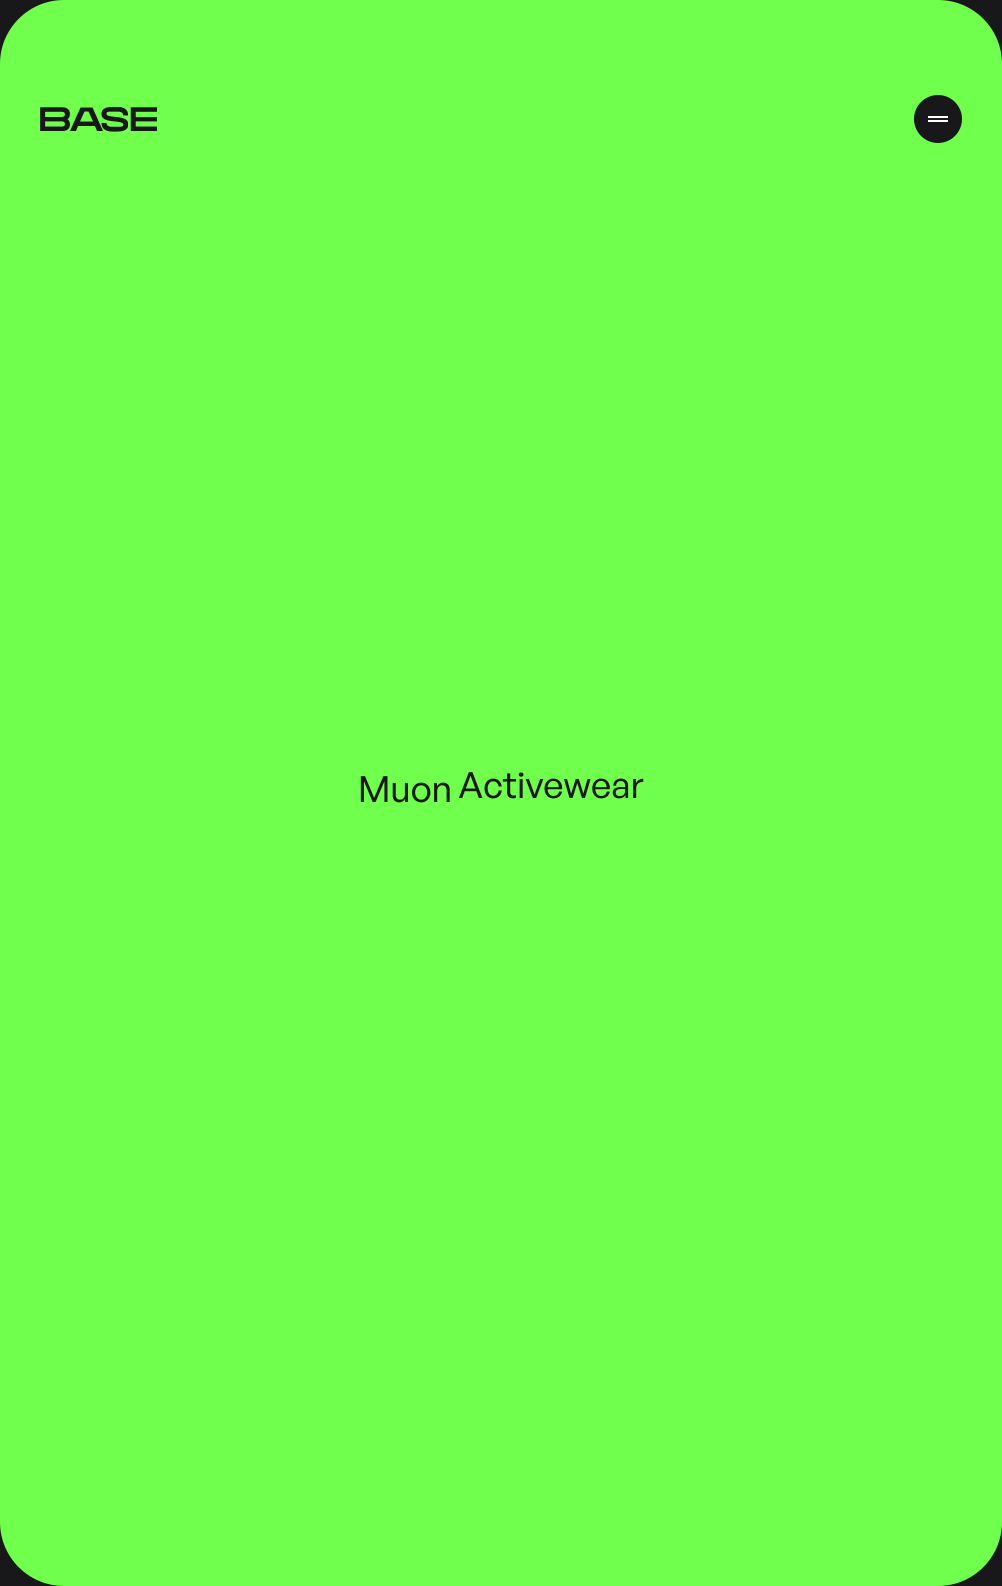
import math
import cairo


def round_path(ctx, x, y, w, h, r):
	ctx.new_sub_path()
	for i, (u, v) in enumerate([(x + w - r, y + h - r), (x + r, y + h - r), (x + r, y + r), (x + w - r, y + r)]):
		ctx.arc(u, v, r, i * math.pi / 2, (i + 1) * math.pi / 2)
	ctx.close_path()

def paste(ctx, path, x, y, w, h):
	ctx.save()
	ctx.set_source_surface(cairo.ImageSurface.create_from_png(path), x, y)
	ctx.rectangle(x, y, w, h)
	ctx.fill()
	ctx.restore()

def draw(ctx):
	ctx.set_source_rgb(0.439, 1, 0.302)
	ctx.paint()
	round_path(ctx, -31.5, -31.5, 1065, 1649, 95.5)
	ctx.set_source_rgb(0.094, 0.094, 0.102)
	ctx.set_line_width(63)
	ctx.stroke()
	paste(ctx, 'media/1.png', 40, 107, 30, 24)
	ctx.new_path()
	ctx.move_to(92.5, 107.5)
	ctx.line_to(80.5, 107.5)
	ctx.line_to(70, 131)
	ctx.line_to(76, 131)
	ctx.line_to(78, 126)
	ctx.line_to(95, 126)
	ctx.line_to(97, 131)
	ctx.line_to(103, 131)
	ctx.close_path()
	ctx.move_to(80, 121.5)
	ctx.line_to(84.5, 111.5)
	ctx.line_to(88.5, 111.5)
	ctx.line_to(93, 121.5)
	ctx.close_path()
	ctx.fill()
	paste(ctx, 'media/2.png', 101, 107, 27, 25)
	paste(ctx, 'media/3.png', 130, 107, 27, 24)
	ctx.arc(938, 119, 24, 0, 2 * math.pi)
	ctx.fill()
	ctx.set_source_rgb(1, 1, 1)
	ctx.rectangle(928, 116, 20, 2)
	ctx.fill()
	ctx.rectangle(928, 120, 20, 2)
	ctx.fill()
	ctx.select_font_face('General Sans')
	ctx.set_font_size(36)
	ctx.set_source_rgb(0.094, 0.094, 0.102)
	ctx.move_to(358, 802)
	ctx.show_text('Muon')
	ctx.move_to(458, 798)
	ctx.show_text('Activewear')


surface = cairo.ImageSurface(cairo.FORMAT_RGB24, 1002, 1586)
ctx = cairo.Context(surface)
options = cairo.FontOptions()
options.set_hint_metrics(cairo.HINT_METRICS_OFF)
options.set_hint_style(cairo.HINT_STYLE_NONE)
ctx.set_font_options(options)
ctx.set_miter_limit(4)
draw(ctx)
surface.write_to_png('image.png')
